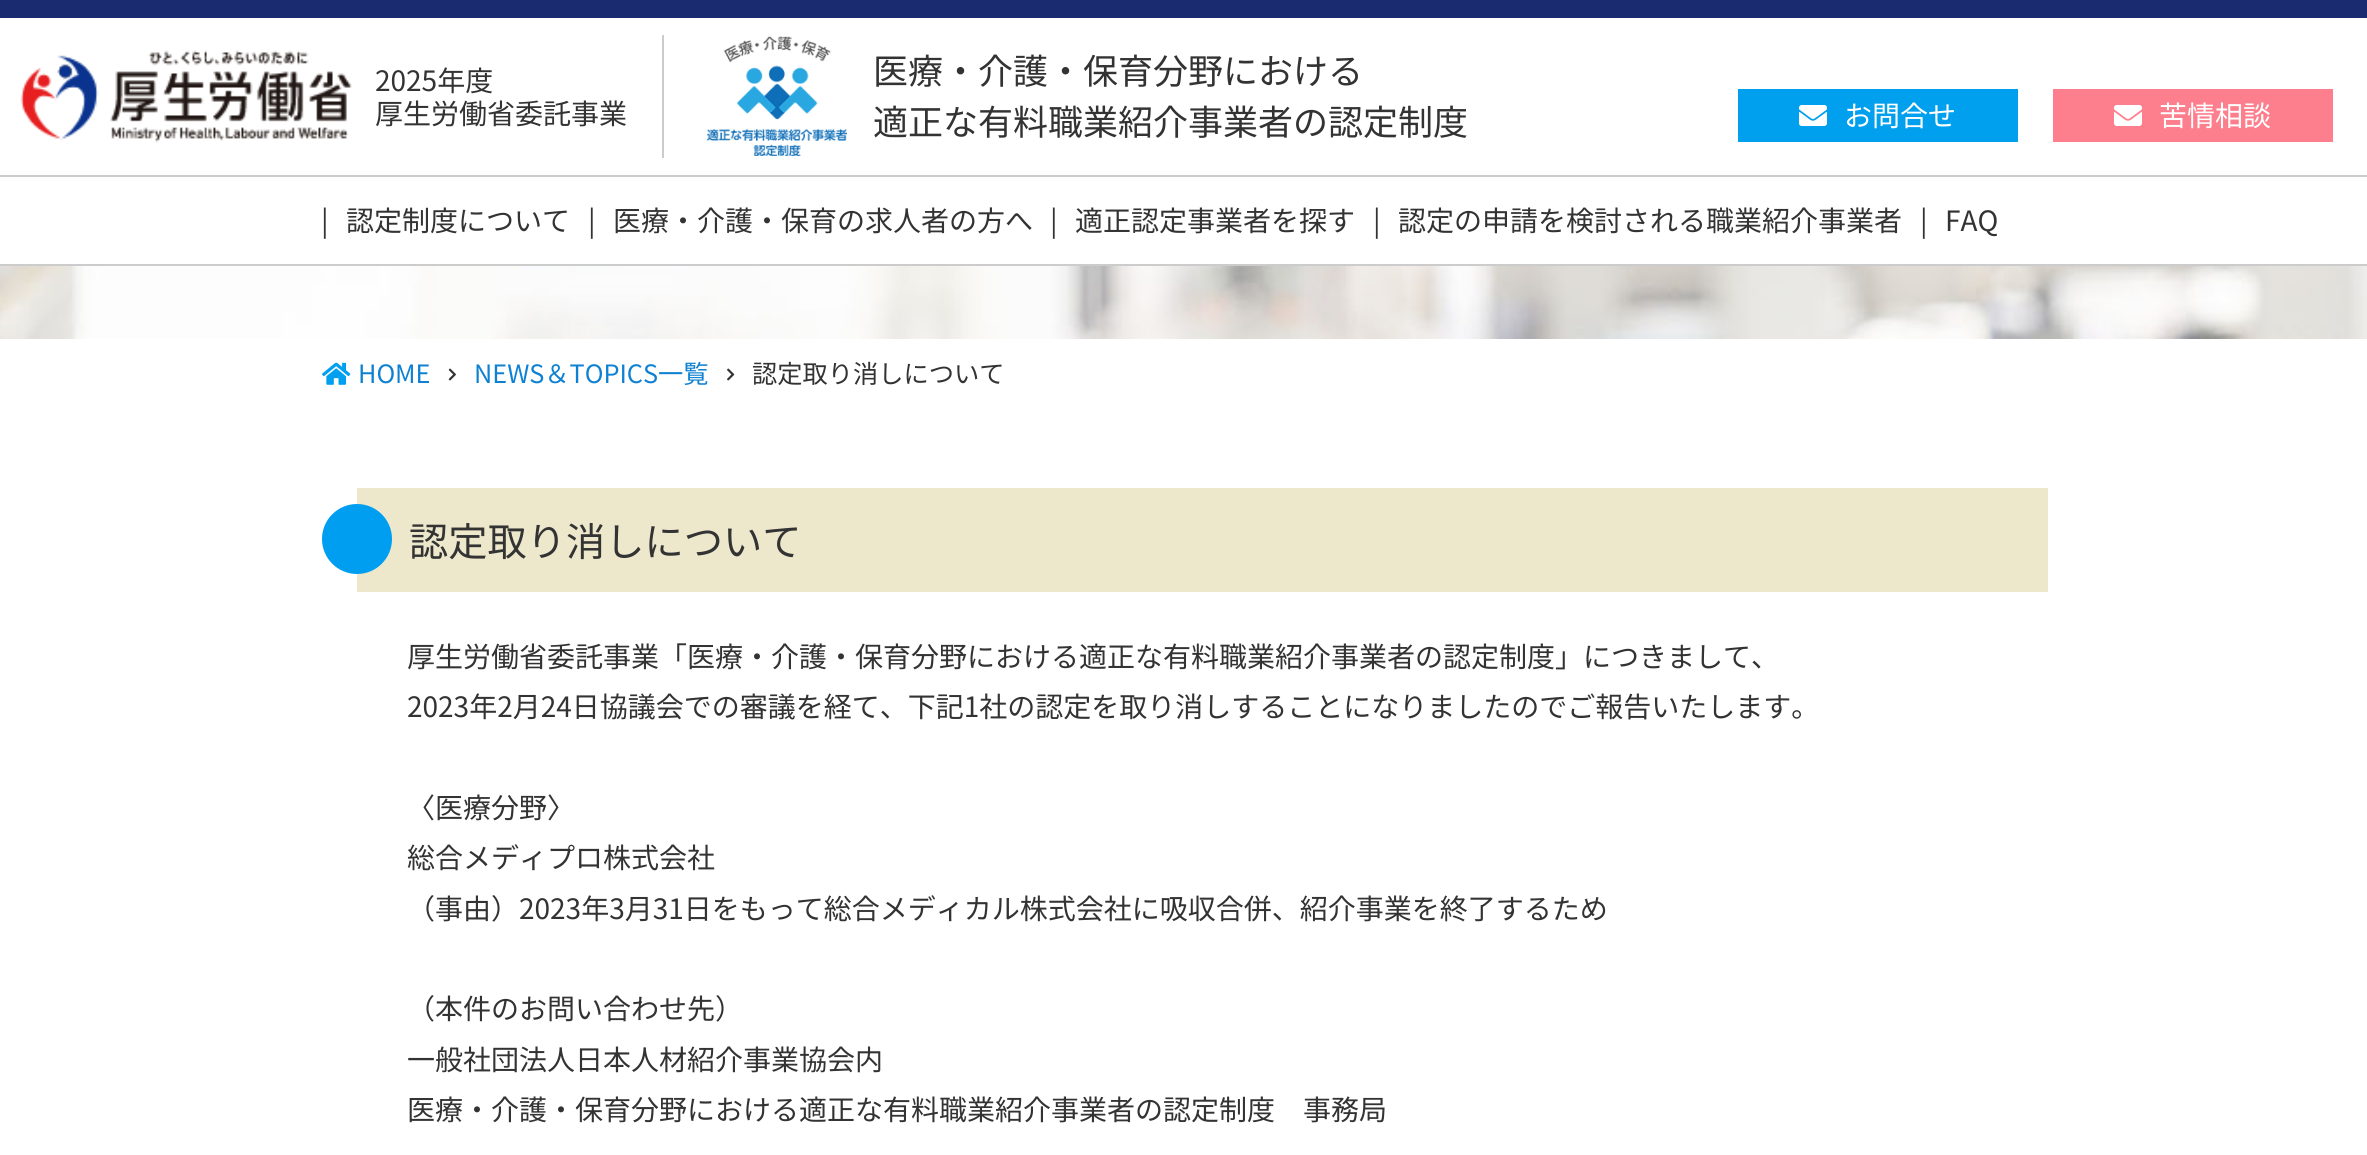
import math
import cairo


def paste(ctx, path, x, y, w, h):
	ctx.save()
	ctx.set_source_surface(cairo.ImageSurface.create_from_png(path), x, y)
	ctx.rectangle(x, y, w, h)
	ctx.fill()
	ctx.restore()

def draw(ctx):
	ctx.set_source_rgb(1, 1, 1)
	ctx.paint()
	ctx.set_source_rgb(0.102, 0.169, 0.439)
	ctx.rectangle(0, 0, 2367, 18)
	ctx.fill()
	ctx.set_source_rgb(0.8, 0.8, 0.8)
	ctx.rectangle(662, 35, 2, 123)
	ctx.fill()
	paste(ctx, 'media/1.png', 20, 50, 332, 93)
	ctx.select_font_face('Noto Sans JP')
	ctx.set_font_size(28)
	ctx.set_source_rgb(0.2, 0.2, 0.2)
	ctx.move_to(375, 91)
	ctx.show_text('2025年度')
	ctx.move_to(375, 124)
	ctx.show_text('厚生労働省委託事業')
	paste(ctx, 'media/2.png', 707, 36, 140, 120)
	ctx.set_font_size(35)
	ctx.move_to(873, 84)
	ctx.show_text('医療・介護・保育分野における')
	ctx.move_to(873, 135)
	ctx.show_text('適正な有料職業紹介事業者の認定制度')
	ctx.set_source_rgb(0.8, 0.8, 0.8)
	ctx.rectangle(0, 175, 2367, 2)
	ctx.rectangle(0, 264, 2367, 2)
	ctx.fill()
	ctx.set_source_rgb(0, 0.627, 0.933)
	ctx.rectangle(1738, 89, 280, 53)
	ctx.fill()
	paste(ctx, 'media/3.png', 1799, 105, 28, 21)
	ctx.set_font_size(28)
	ctx.set_source_rgb(1, 1, 1)
	ctx.move_to(1844, 126)
	ctx.show_text('お問合せ')
	ctx.set_source_rgb(0.992, 0.494, 0.549)
	ctx.rectangle(2053, 89, 280, 53)
	ctx.fill()
	paste(ctx, 'media/4.png', 2114, 105, 28, 21)
	ctx.set_source_rgb(1, 1, 1)
	ctx.move_to(2159, 126)
	ctx.show_text('苦情相談')
	ctx.set_source_rgb(0.2, 0.2, 0.2)
	for x, y, s in [
		(321, 231, '|'),
		(346, 231, '認定制度について'),
		(588, 231, '|'),
		(613, 231, '医療・介護・保育の求人者の方へ'),
		(1050, 231, '|'),
		(1075, 231, '適正認定事業者を探す'),
		(1373, 231, '|'),
		(1398, 231, '認定の申請を検討される職業紹介事業者'),
		(1920, 231, '|'),
		(1945, 231, 'FAQ'),
	]:
		ctx.move_to(x, y)
		ctx.show_text(s)
	paste(ctx, 'media/5.png', 0, 266, 2367, 73)
	paste(ctx, 'media/6.png', 322, 362, 29, 23)
	ctx.set_font_size(25.25)
	ctx.set_source_rgb(0.055, 0.506, 0.824)
	ctx.move_to(358, 383)
	ctx.show_text('HOME')
	paste(ctx, 'media/7.png', 448, 368, 8, 13)
	ctx.move_to(474, 383)
	ctx.show_text('NEWS＆TOPICS一覧')
	paste(ctx, 'media/8.png', 727, 368, 8, 13)
	ctx.set_source_rgb(0.2, 0.2, 0.2)
	ctx.move_to(752, 383)
	ctx.show_text('認定取り消しについて')
	ctx.set_source_rgb(0.929, 0.91, 0.8)
	ctx.rectangle(357, 488, 1691, 104)
	ctx.fill()
	ctx.set_source_rgb(0, 0.62, 0.945)
	ctx.arc(357, 539, 35, 0, 2 * math.pi)
	ctx.fill()
	ctx.set_font_size(39.25)
	ctx.set_source_rgb(0.2, 0.2, 0.2)
	ctx.move_to(409, 556)
	ctx.show_text('認定取り消しについて')
	ctx.set_font_size(28)
	for x, y, s in [
		(407, 667, '厚生労働省委託事業「医療・介護・保育分野における適正な有料職業紹介事業者の認定制度」につきまして、'),
		(407, 717, '2023年2月24日協議会での審議を経て、下記1社の認定を取り消しすることになりましたのでご報告いたします。'),
		(407, 818, '〈医療分野〉'),
		(407, 868, '総合メディプロ株式会社'),
		(407, 919, '（事由）2023年3月31日をもって総合メディカル株式会社に吸収合併、紹介事業を終了するため'),
		(407, 1019, '（本件のお問い合わせ先）'),
		(407, 1070, '一般社団法人日本人材紹介事業協会内'),
		(407, 1120, '医療・介護・保育分野における適正な有料職業紹介事業者の認定制度　事務局'),
	]:
		ctx.move_to(x, y)
		ctx.show_text(s)


surface = cairo.ImageSurface(cairo.FORMAT_RGB24, 2367, 1155)
ctx = cairo.Context(surface)
options = cairo.FontOptions()
options.set_hint_metrics(cairo.HINT_METRICS_OFF)
options.set_hint_style(cairo.HINT_STYLE_NONE)
ctx.set_font_options(options)
ctx.set_miter_limit(4)
draw(ctx)
surface.write_to_png('image.png')
